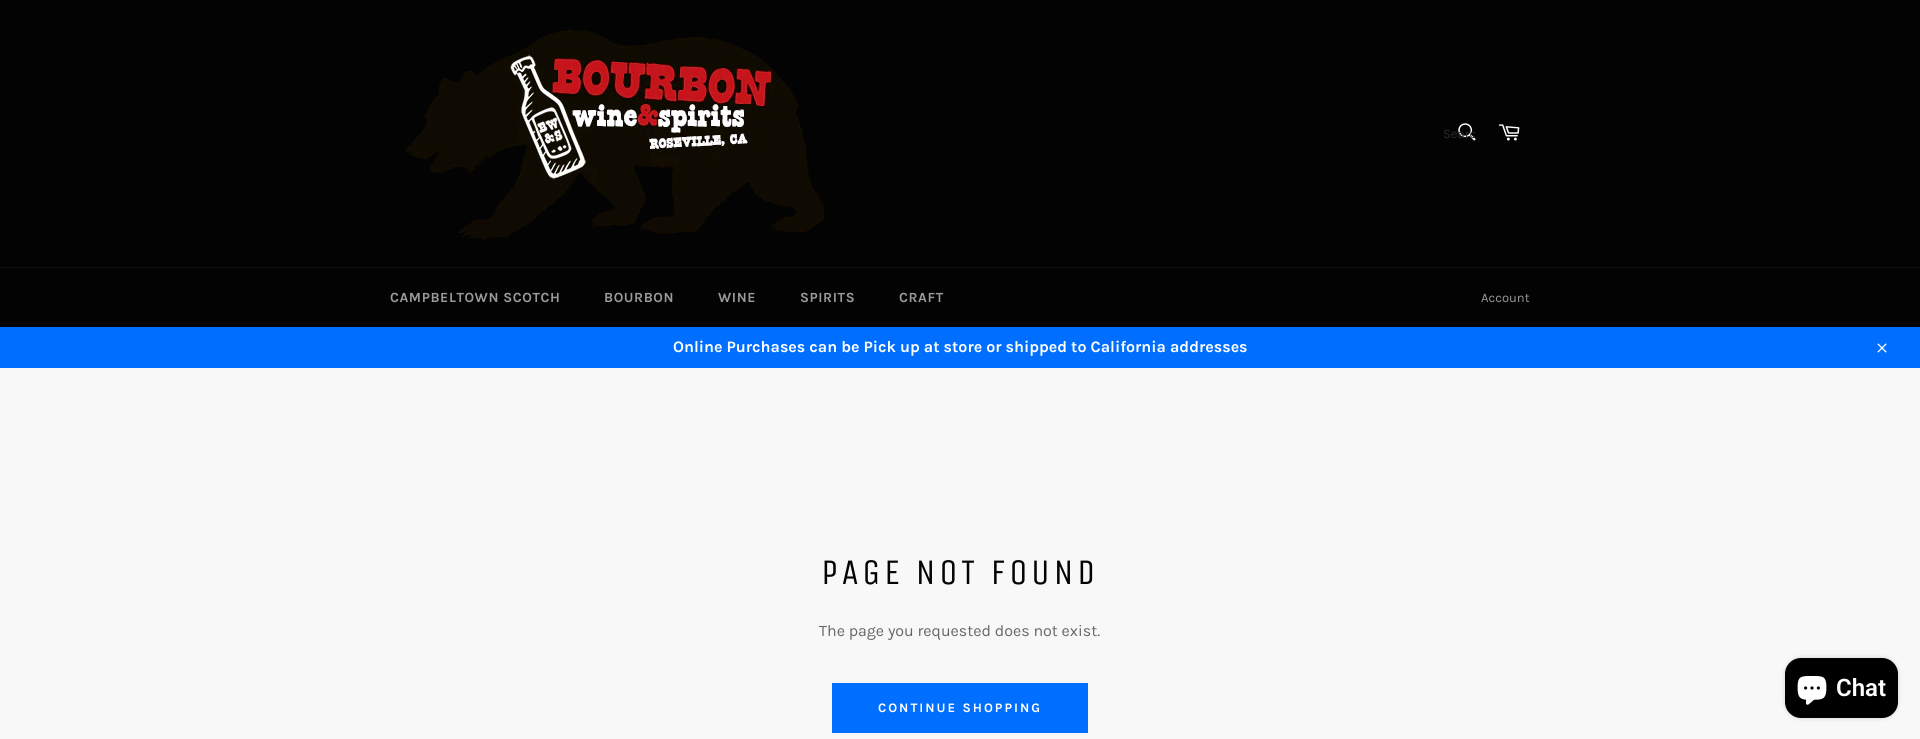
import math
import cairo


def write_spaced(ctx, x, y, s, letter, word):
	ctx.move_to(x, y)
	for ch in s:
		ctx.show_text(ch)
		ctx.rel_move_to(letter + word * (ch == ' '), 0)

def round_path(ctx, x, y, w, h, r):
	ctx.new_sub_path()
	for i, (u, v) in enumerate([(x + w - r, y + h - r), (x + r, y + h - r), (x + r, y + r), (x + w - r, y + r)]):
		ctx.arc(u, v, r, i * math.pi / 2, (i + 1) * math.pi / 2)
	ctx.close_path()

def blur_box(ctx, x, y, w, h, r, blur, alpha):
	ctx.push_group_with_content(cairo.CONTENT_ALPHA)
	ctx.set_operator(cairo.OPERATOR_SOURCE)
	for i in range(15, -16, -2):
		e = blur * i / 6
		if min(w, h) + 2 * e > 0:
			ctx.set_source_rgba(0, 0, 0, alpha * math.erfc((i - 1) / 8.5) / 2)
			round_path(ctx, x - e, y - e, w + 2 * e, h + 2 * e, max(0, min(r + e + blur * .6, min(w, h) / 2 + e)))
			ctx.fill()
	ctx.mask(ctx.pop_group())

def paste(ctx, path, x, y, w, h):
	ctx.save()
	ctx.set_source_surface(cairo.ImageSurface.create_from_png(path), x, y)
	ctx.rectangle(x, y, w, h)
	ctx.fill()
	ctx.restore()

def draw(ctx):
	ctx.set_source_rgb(0.969, 0.969, 0.969)
	ctx.paint()
	ctx.set_source_rgb(0.012, 0.012, 0.012)
	ctx.rectangle(0, 0, 1920, 267)
	ctx.fill()
	paste(ctx, 'media/1.png', 405, 29, 421, 211)
	paste(ctx, 'media/2.png', 1458, 123, 18, 18)
	ctx.select_font_face('Karla')
	ctx.set_font_size(13)
	ctx.set_source_rgb(0.169, 0.169, 0.169)
	ctx.move_to(1443, 138)
	ctx.show_text('Searc')
	paste(ctx, 'media/3.png', 1498, 124, 22, 17)
	ctx.set_source_rgb(0.012, 0.012, 0.012)
	ctx.rectangle(0, 268, 1920, 59)
	ctx.fill()
	ctx.set_source_rgb(0.063, 0.063, 0.063)
	ctx.rectangle(0, 267, 1920, 1)
	ctx.fill()
	ctx.select_font_face('Karla', cairo.FONT_SLANT_NORMAL, cairo.FONT_WEIGHT_BOLD)
	ctx.set_font_size(14)
	ctx.set_source_rgb(0.604, 0.604, 0.604)
	for x, y, s in [
		(390, 302, 'CAMPBELTOWN SCOTCH'),
		(604, 302, 'BOURBON'),
		(718, 302, 'WINE'),
		(800, 302, 'SPIRITS'),
		(899, 302, 'CRAFT'),
	]:
		write_spaced(ctx, x, y, s, 0.6, 0)
	ctx.select_font_face('Karla')
	ctx.set_font_size(13)
	ctx.move_to(1481, 302)
	ctx.show_text('Account')
	ctx.set_source_rgb(0, 0.431, 1)
	ctx.rectangle(0, 327, 1920, 41)
	ctx.fill()
	ctx.select_font_face('Karla', cairo.FONT_SLANT_NORMAL, cairo.FONT_WEIGHT_BOLD)
	ctx.set_font_size(16)
	ctx.set_source_rgb(1, 1, 1)
	ctx.move_to(673, 352)
	ctx.show_text('Online Purchases can be Pick up at store or shipped to California addresses')
	paste(ctx, 'media/4.png', 1877, 343, 10, 10)
	ctx.select_font_face('Unica One')
	ctx.set_font_size(36)
	ctx.set_source_rgb(0.012, 0.012, 0.012)
	write_spaced(ctx, 821, 584, 'PAGE NOT FOUND', 3.6, 0)
	ctx.select_font_face('Karla')
	ctx.set_font_size(16)
	ctx.set_source_rgb(0.4, 0.4, 0.4)
	ctx.move_to(819, 636)
	ctx.show_text('The page you requested does not exist.')
	ctx.set_source_rgb(0, 0.431, 1)
	ctx.rectangle(832, 683, 256, 50)
	ctx.fill()
	ctx.select_font_face('Karla', cairo.FONT_SLANT_NORMAL, cairo.FONT_WEIGHT_BOLD)
	ctx.set_font_size(13)
	ctx.set_source_rgb(1, 1, 1)
	write_spaced(ctx, 878, 712, 'CONTINUE SHOPPING', 2, 0)
	ctx.set_source_rgb(0, 0, 0)
	blur_box(ctx, 1785, 658, 113, 60, 16, 2.5, 0.15)
	ctx.set_source_rgb(0, 0, 0)
	round_path(ctx, 1785, 658, 113, 60, 16)
	ctx.fill()
	paste(ctx, 'media/5.png', 1797, 676, 30, 29)
	ctx.select_font_face('Roboto SemiBold')
	ctx.set_font_size(24)
	ctx.set_source_rgb(1, 1, 1)
	ctx.move_to(1836, 696)
	ctx.show_text('Chat')


surface = cairo.ImageSurface(cairo.FORMAT_RGB24, 1920, 739)
ctx = cairo.Context(surface)
options = cairo.FontOptions()
options.set_hint_metrics(cairo.HINT_METRICS_OFF)
options.set_hint_style(cairo.HINT_STYLE_NONE)
ctx.set_font_options(options)
ctx.set_miter_limit(4)
draw(ctx)
surface.write_to_png('image.png')
